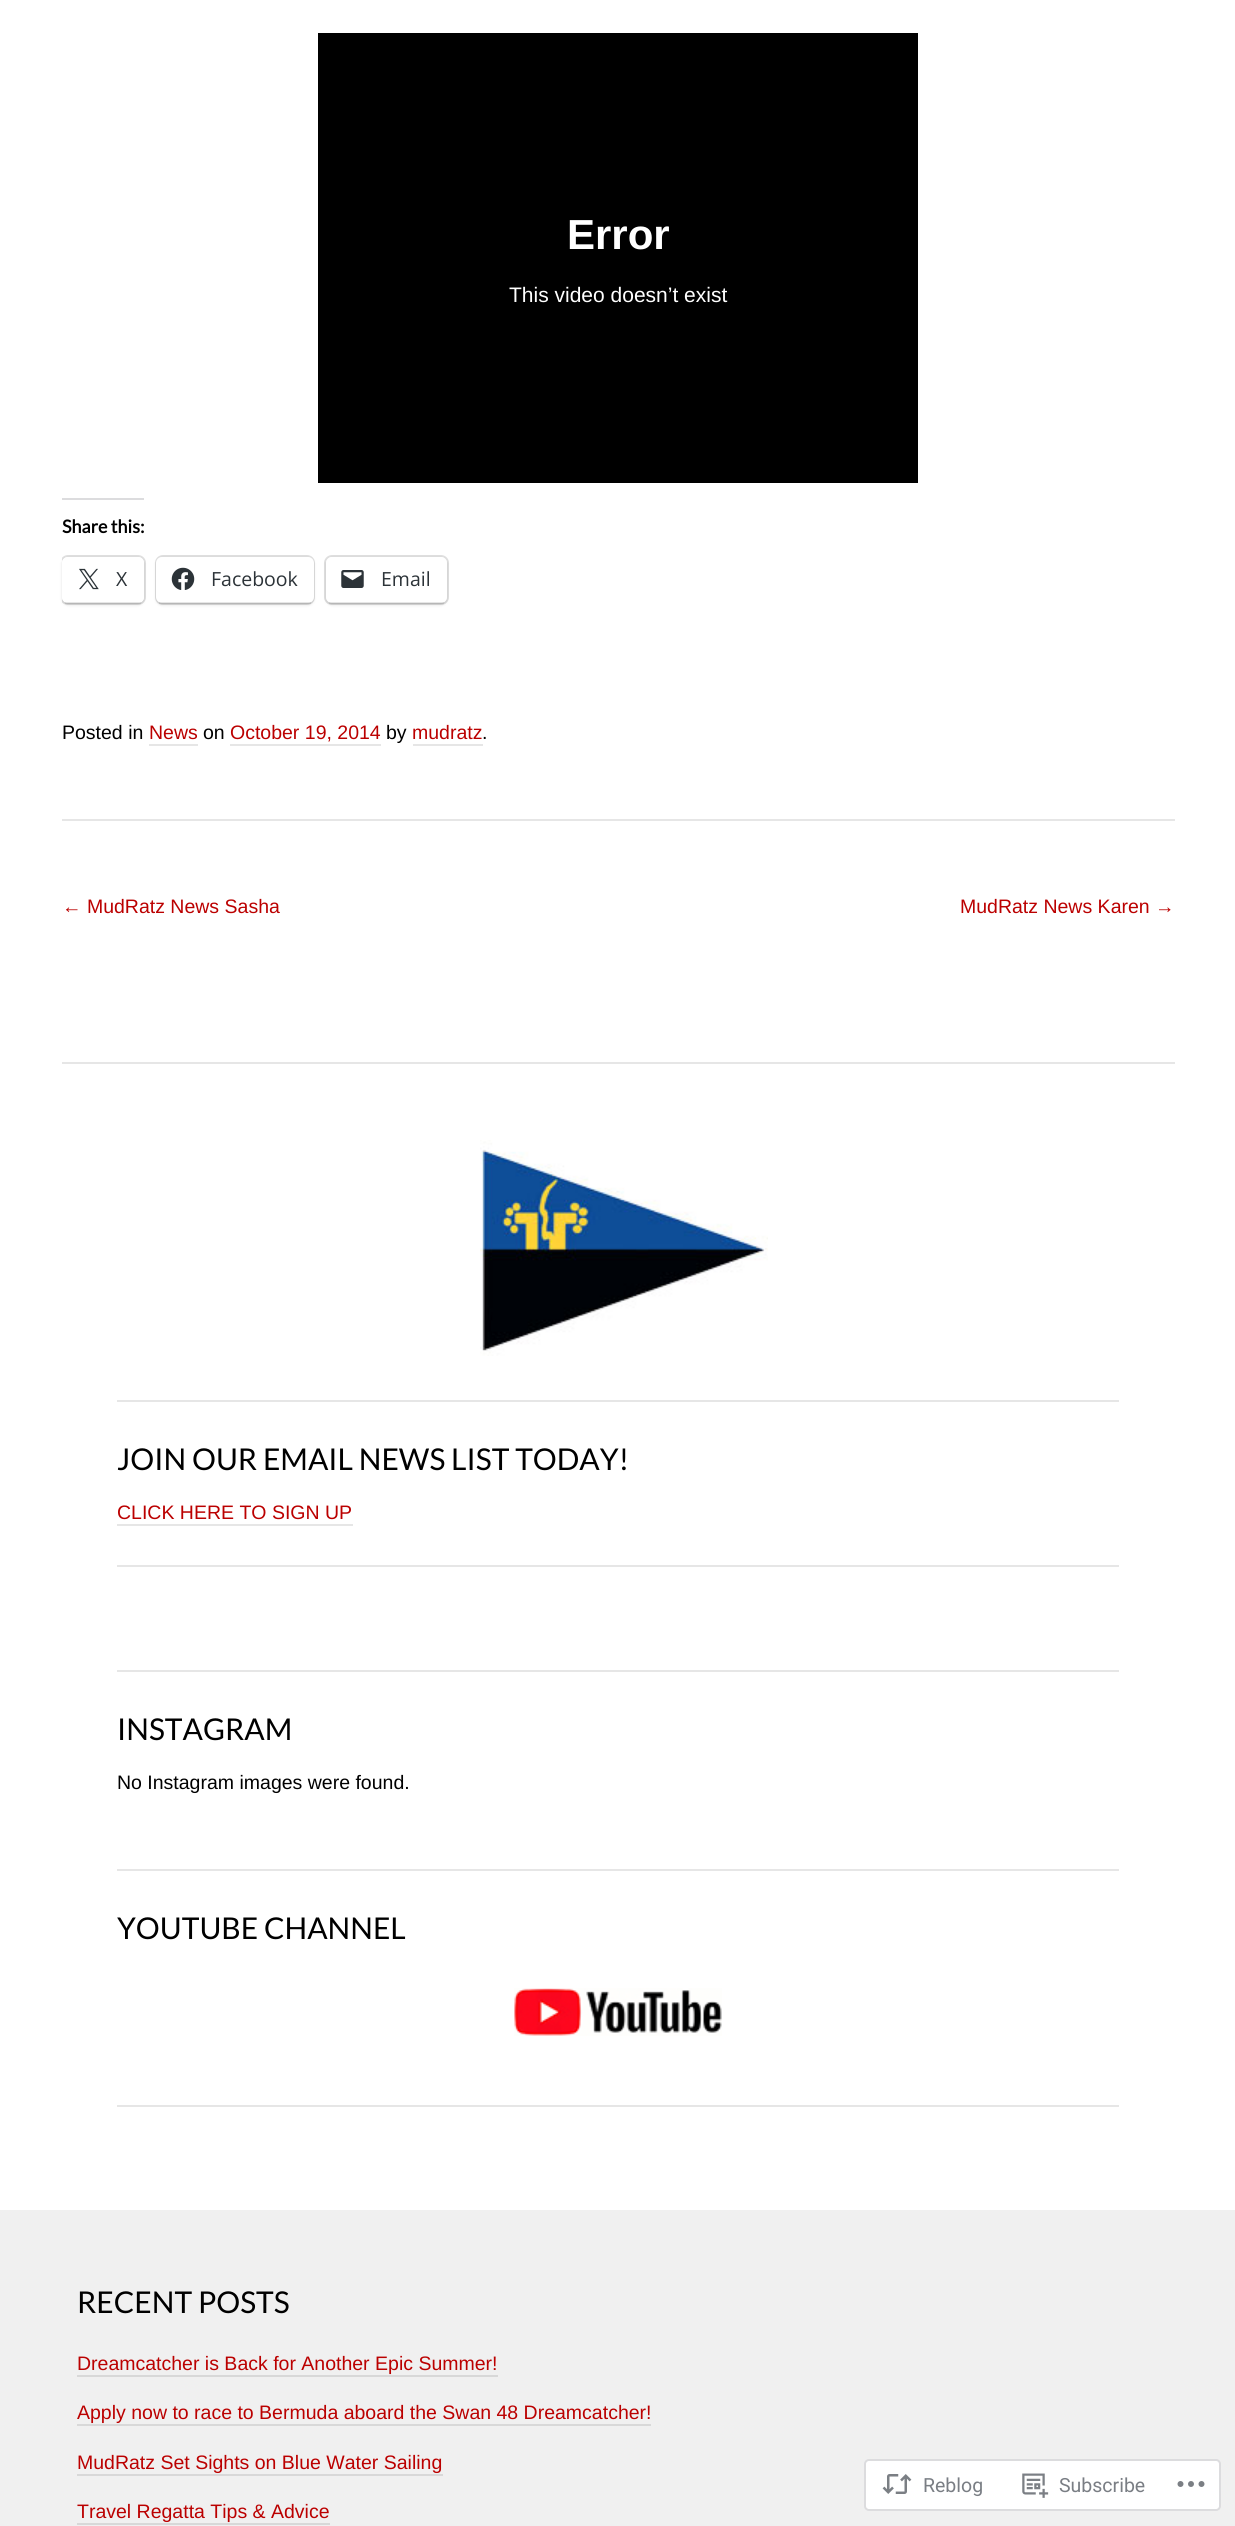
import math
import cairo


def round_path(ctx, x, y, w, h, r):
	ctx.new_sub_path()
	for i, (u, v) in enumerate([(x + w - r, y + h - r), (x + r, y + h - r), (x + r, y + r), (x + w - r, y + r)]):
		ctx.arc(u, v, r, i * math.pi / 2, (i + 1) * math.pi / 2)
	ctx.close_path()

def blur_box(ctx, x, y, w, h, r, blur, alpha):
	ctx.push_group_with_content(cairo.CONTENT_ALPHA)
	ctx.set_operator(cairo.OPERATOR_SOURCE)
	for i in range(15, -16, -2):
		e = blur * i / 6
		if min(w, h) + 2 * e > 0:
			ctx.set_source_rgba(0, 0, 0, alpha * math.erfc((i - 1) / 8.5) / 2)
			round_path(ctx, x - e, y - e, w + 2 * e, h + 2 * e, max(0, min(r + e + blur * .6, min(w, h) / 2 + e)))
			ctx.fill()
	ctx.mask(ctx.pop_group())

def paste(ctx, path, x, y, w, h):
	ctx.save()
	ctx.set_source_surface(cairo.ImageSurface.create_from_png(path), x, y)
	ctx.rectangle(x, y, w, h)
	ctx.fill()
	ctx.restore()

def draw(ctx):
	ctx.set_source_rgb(1, 1, 1)
	ctx.paint()
	ctx.set_source_rgb(0.902, 0.902, 0.902)
	ctx.rectangle(62, 1062, 1113, 2)
	ctx.rectangle(62, 819, 1113, 2)
	ctx.fill()
	ctx.set_source_rgb(0, 0, 0)
	ctx.rectangle(318, 33, 600, 450)
	ctx.fill()
	ctx.select_font_face('Liberation Sans', cairo.FONT_SLANT_NORMAL, cairo.FONT_WEIGHT_BOLD)
	ctx.set_font_size(42)
	ctx.set_source_rgb(1, 1, 1)
	ctx.move_to(567, 249)
	ctx.show_text('Error')
	ctx.select_font_face('Liberation Sans')
	ctx.set_font_size(21)
	ctx.move_to(509, 302)
	ctx.show_text('This video doesn’t exist')
	ctx.set_source_rgb(0.863, 0.863, 0.871)
	ctx.rectangle(62, 498, 82, 2)
	ctx.fill()
	ctx.select_font_face('Lato', cairo.FONT_SLANT_NORMAL, cairo.FONT_WEIGHT_BOLD)
	ctx.set_font_size(18)
	ctx.set_source_rgb(0, 0, 0)
	ctx.move_to(62, 533)
	ctx.show_text('Share this:')
	ctx.save()
	ctx.rectangle(62, 0, 1113, 2210)
	ctx.clip()
	round_path(ctx, 61, 556, 84, 48, 7)
	ctx.set_source_rgb(0.878, 0.878, 0.878)
	ctx.stroke()
	ctx.restore()
	ctx.save()
	ctx.set_fill_rule(cairo.FILL_RULE_EVEN_ODD)
	ctx.new_path()
	ctx.move_to(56, 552)
	ctx.line_to(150, 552)
	ctx.line_to(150, 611)
	ctx.line_to(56, 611)
	ctx.close_path()
	ctx.move_to(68, 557)
	ctx.line_to(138, 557)
	ctx.curve_to(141.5, 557, 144, 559.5, 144, 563)
	ctx.line_to(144, 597)
	ctx.curve_to(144, 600.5, 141.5, 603, 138, 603)
	ctx.line_to(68, 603)
	ctx.curve_to(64.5, 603, 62, 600.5, 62, 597)
	ctx.line_to(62, 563)
	ctx.curve_to(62, 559.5, 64.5, 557, 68, 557)
	ctx.close_path()
	ctx.clip()
	ctx.set_source_rgb(0, 0, 0)
	blur_box(ctx, 62, 558, 82, 47, 6, 1.5, 0.12)
	ctx.restore()
	ctx.set_source_rgb(1, 1, 1)
	round_path(ctx, 62, 557, 82, 46, 6)
	ctx.fill()
	ctx.set_source_rgba(0, 0, 0, 0.1)
	ctx.rectangle(65, 602, 76, 2)
	ctx.fill()
	paste(ctx, 'media/1.png', 79, 568, 20, 22)
	ctx.select_font_face('Open Sans')
	ctx.set_font_size(19.5)
	ctx.set_source_rgb(0.173, 0.2, 0.22)
	ctx.move_to(116, 586)
	ctx.show_text('X')
	round_path(ctx, 156, 556, 158, 48, 7)
	ctx.set_source_rgb(0.878, 0.878, 0.878)
	ctx.stroke()
	ctx.set_source_rgb(0, 0, 0)
	blur_box(ctx, 156, 558, 158, 47, 6, 1.5, 0.12)
	ctx.set_source_rgb(1, 1, 1)
	round_path(ctx, 156, 557, 158, 46, 6)
	ctx.fill()
	ctx.set_source_rgba(0, 0, 0, 0.1)
	ctx.rectangle(159, 602, 152, 2)
	ctx.fill()
	paste(ctx, 'media/2.png', 171, 567, 24, 23)
	ctx.set_source_rgb(0.173, 0.2, 0.22)
	ctx.move_to(211, 586)
	ctx.show_text('Facebook')
	round_path(ctx, 325, 556, 123, 48, 7)
	ctx.set_source_rgb(0.878, 0.878, 0.878)
	ctx.stroke()
	ctx.set_source_rgb(0, 0, 0)
	blur_box(ctx, 326, 558, 121, 47, 6, 1.5, 0.12)
	ctx.set_source_rgb(1, 1, 1)
	round_path(ctx, 326, 557, 121, 46, 6)
	ctx.fill()
	ctx.set_source_rgba(0, 0, 0, 0.1)
	ctx.rectangle(329, 602, 115, 2)
	ctx.fill()
	paste(ctx, 'media/3.png', 341, 570, 23, 18)
	ctx.set_source_rgb(0.173, 0.2, 0.22)
	ctx.move_to(381, 586)
	ctx.show_text('Email')
	ctx.select_font_face('Liberation Sans')
	ctx.set_source_rgb(0, 0, 0)
	ctx.move_to(62, 739)
	ctx.show_text('Posted in')
	ctx.set_source_rgb(0.733, 0, 0)
	ctx.move_to(149, 739)
	ctx.show_text('News')
	ctx.set_source_rgb(0.902, 0.902, 0.902)
	ctx.rectangle(149, 744, 49, 2)
	ctx.fill()
	ctx.set_source_rgb(0, 0, 0)
	ctx.move_to(203, 739)
	ctx.show_text('on')
	ctx.set_source_rgb(0.733, 0, 0)
	ctx.move_to(230, 739)
	ctx.show_text('October 19, 2014')
	ctx.set_source_rgb(0.902, 0.902, 0.902)
	ctx.rectangle(230, 744, 151, 2)
	ctx.fill()
	ctx.set_source_rgb(0, 0, 0)
	ctx.move_to(386, 739)
	ctx.show_text('by')
	ctx.set_source_rgb(0.733, 0, 0)
	ctx.move_to(412, 739)
	ctx.show_text('mudratz')
	ctx.set_source_rgb(0.902, 0.902, 0.902)
	ctx.rectangle(413, 744, 70, 2)
	ctx.fill()
	ctx.set_source_rgb(0, 0, 0)
	ctx.move_to(482, 739)
	ctx.show_text('.')
	ctx.set_source_rgb(0.733, 0, 0)
	ctx.move_to(62, 913)
	ctx.show_text('← MudRatz News Sasha')
	ctx.move_to(960, 913)
	ctx.show_text('MudRatz News Karen →')
	ctx.set_source_rgb(0.902, 0.902, 0.902)
	ctx.rectangle(117, 1400, 1002, 2)
	ctx.fill()
	paste(ctx, 'media/4.png', 480, 1140, 288, 216)
	ctx.rectangle(117, 1565, 1002, 2)
	ctx.fill()
	ctx.select_font_face('Lato')
	ctx.set_font_size(30)
	ctx.set_source_rgb(0, 0, 0)
	ctx.move_to(117, 1470)
	ctx.show_text('JOIN OUR EMAIL NEWS LIST TODAY!')
	ctx.select_font_face('Liberation Sans')
	ctx.set_font_size(19.5)
	ctx.set_source_rgb(0.733, 0, 0)
	ctx.move_to(117, 1519)
	ctx.show_text('CLICK HERE TO SIGN UP')
	ctx.set_source_rgb(0.902, 0.902, 0.902)
	ctx.rectangle(117, 1524, 236, 2)
	ctx.rectangle(117, 1670, 1002, 2)
	ctx.rectangle(117, 1869, 1002, 2)
	ctx.fill()
	ctx.select_font_face('Lato')
	ctx.set_font_size(30)
	ctx.set_source_rgb(0, 0, 0)
	ctx.move_to(117, 1740)
	ctx.show_text('INSTAGRAM')
	ctx.select_font_face('Liberation Sans')
	ctx.set_font_size(19.5)
	ctx.move_to(117, 1789)
	ctx.show_text('No Instagram images were found.')
	ctx.set_source_rgb(0.902, 0.902, 0.902)
	ctx.rectangle(117, 2105, 1002, 2)
	ctx.fill()
	ctx.select_font_face('Lato')
	ctx.set_font_size(30)
	ctx.set_source_rgb(0, 0, 0)
	ctx.move_to(117, 1939)
	ctx.show_text('YOUTUBE CHANNEL')
	paste(ctx, 'media/5.png', 514, 1988, 208, 48)
	ctx.set_source_rgb(0.941, 0.941, 0.941)
	ctx.rectangle(0, 2210, 1235, 316)
	ctx.fill()
	ctx.set_source_rgb(0, 0, 0)
	ctx.move_to(77, 2313)
	ctx.show_text('RECENT POSTS')
	ctx.select_font_face('Liberation Sans')
	ctx.set_font_size(19.5)
	ctx.set_source_rgb(0.733, 0, 0)
	ctx.move_to(77, 2370)
	ctx.show_text('Dreamcatcher is Back for Another Epic Summer!')
	ctx.set_source_rgb(0.847, 0.847, 0.847)
	ctx.rectangle(77, 2375, 421, 2)
	ctx.fill()
	ctx.set_source_rgb(0.733, 0, 0)
	ctx.move_to(77, 2419)
	ctx.show_text('Apply now to race to Bermuda aboard the Swan 48 Dreamcatcher!')
	ctx.set_source_rgb(0.847, 0.847, 0.847)
	ctx.rectangle(77, 2424, 574, 2)
	ctx.fill()
	ctx.set_source_rgb(0.733, 0, 0)
	ctx.move_to(77, 2469)
	ctx.show_text('MudRatz Set Sights on Blue Water Sailing')
	ctx.set_source_rgb(0.847, 0.847, 0.847)
	ctx.rectangle(77, 2474, 366, 2)
	ctx.fill()
	ctx.set_source_rgb(0.733, 0, 0)
	ctx.move_to(77, 2518)
	ctx.show_text('Travel Regatta Tips & Advice')
	ctx.set_source_rgb(0.847, 0.847, 0.847)
	ctx.rectangle(77, 2523, 253, 2)
	ctx.fill()
	ctx.set_source_rgb(1, 1, 1)
	round_path(ctx, 865, 2460, 355, 50, 4)
	ctx.fill_preserve()
	ctx.set_source_rgb(0.863, 0.863, 0.871)
	ctx.stroke()
	paste(ctx, 'media/6.png', 882, 2474, 30, 20)
	ctx.select_font_face('Roboto')
	ctx.set_source_rgb(0.478, 0.494, 0.518)
	ctx.move_to(923, 2492)
	ctx.show_text('Reblog')
	paste(ctx, 'media/7.png', 1022, 2473, 27, 25)
	ctx.move_to(1059, 2492)
	ctx.show_text('Subscribe')
	paste(ctx, 'media/8.png', 1177, 2481, 28, 6)


surface = cairo.ImageSurface(cairo.FORMAT_RGB24, 1235, 2526)
ctx = cairo.Context(surface)
options = cairo.FontOptions()
options.set_hint_metrics(cairo.HINT_METRICS_OFF)
options.set_hint_style(cairo.HINT_STYLE_NONE)
ctx.set_font_options(options)
ctx.set_miter_limit(4)
draw(ctx)
surface.write_to_png('image.png')
